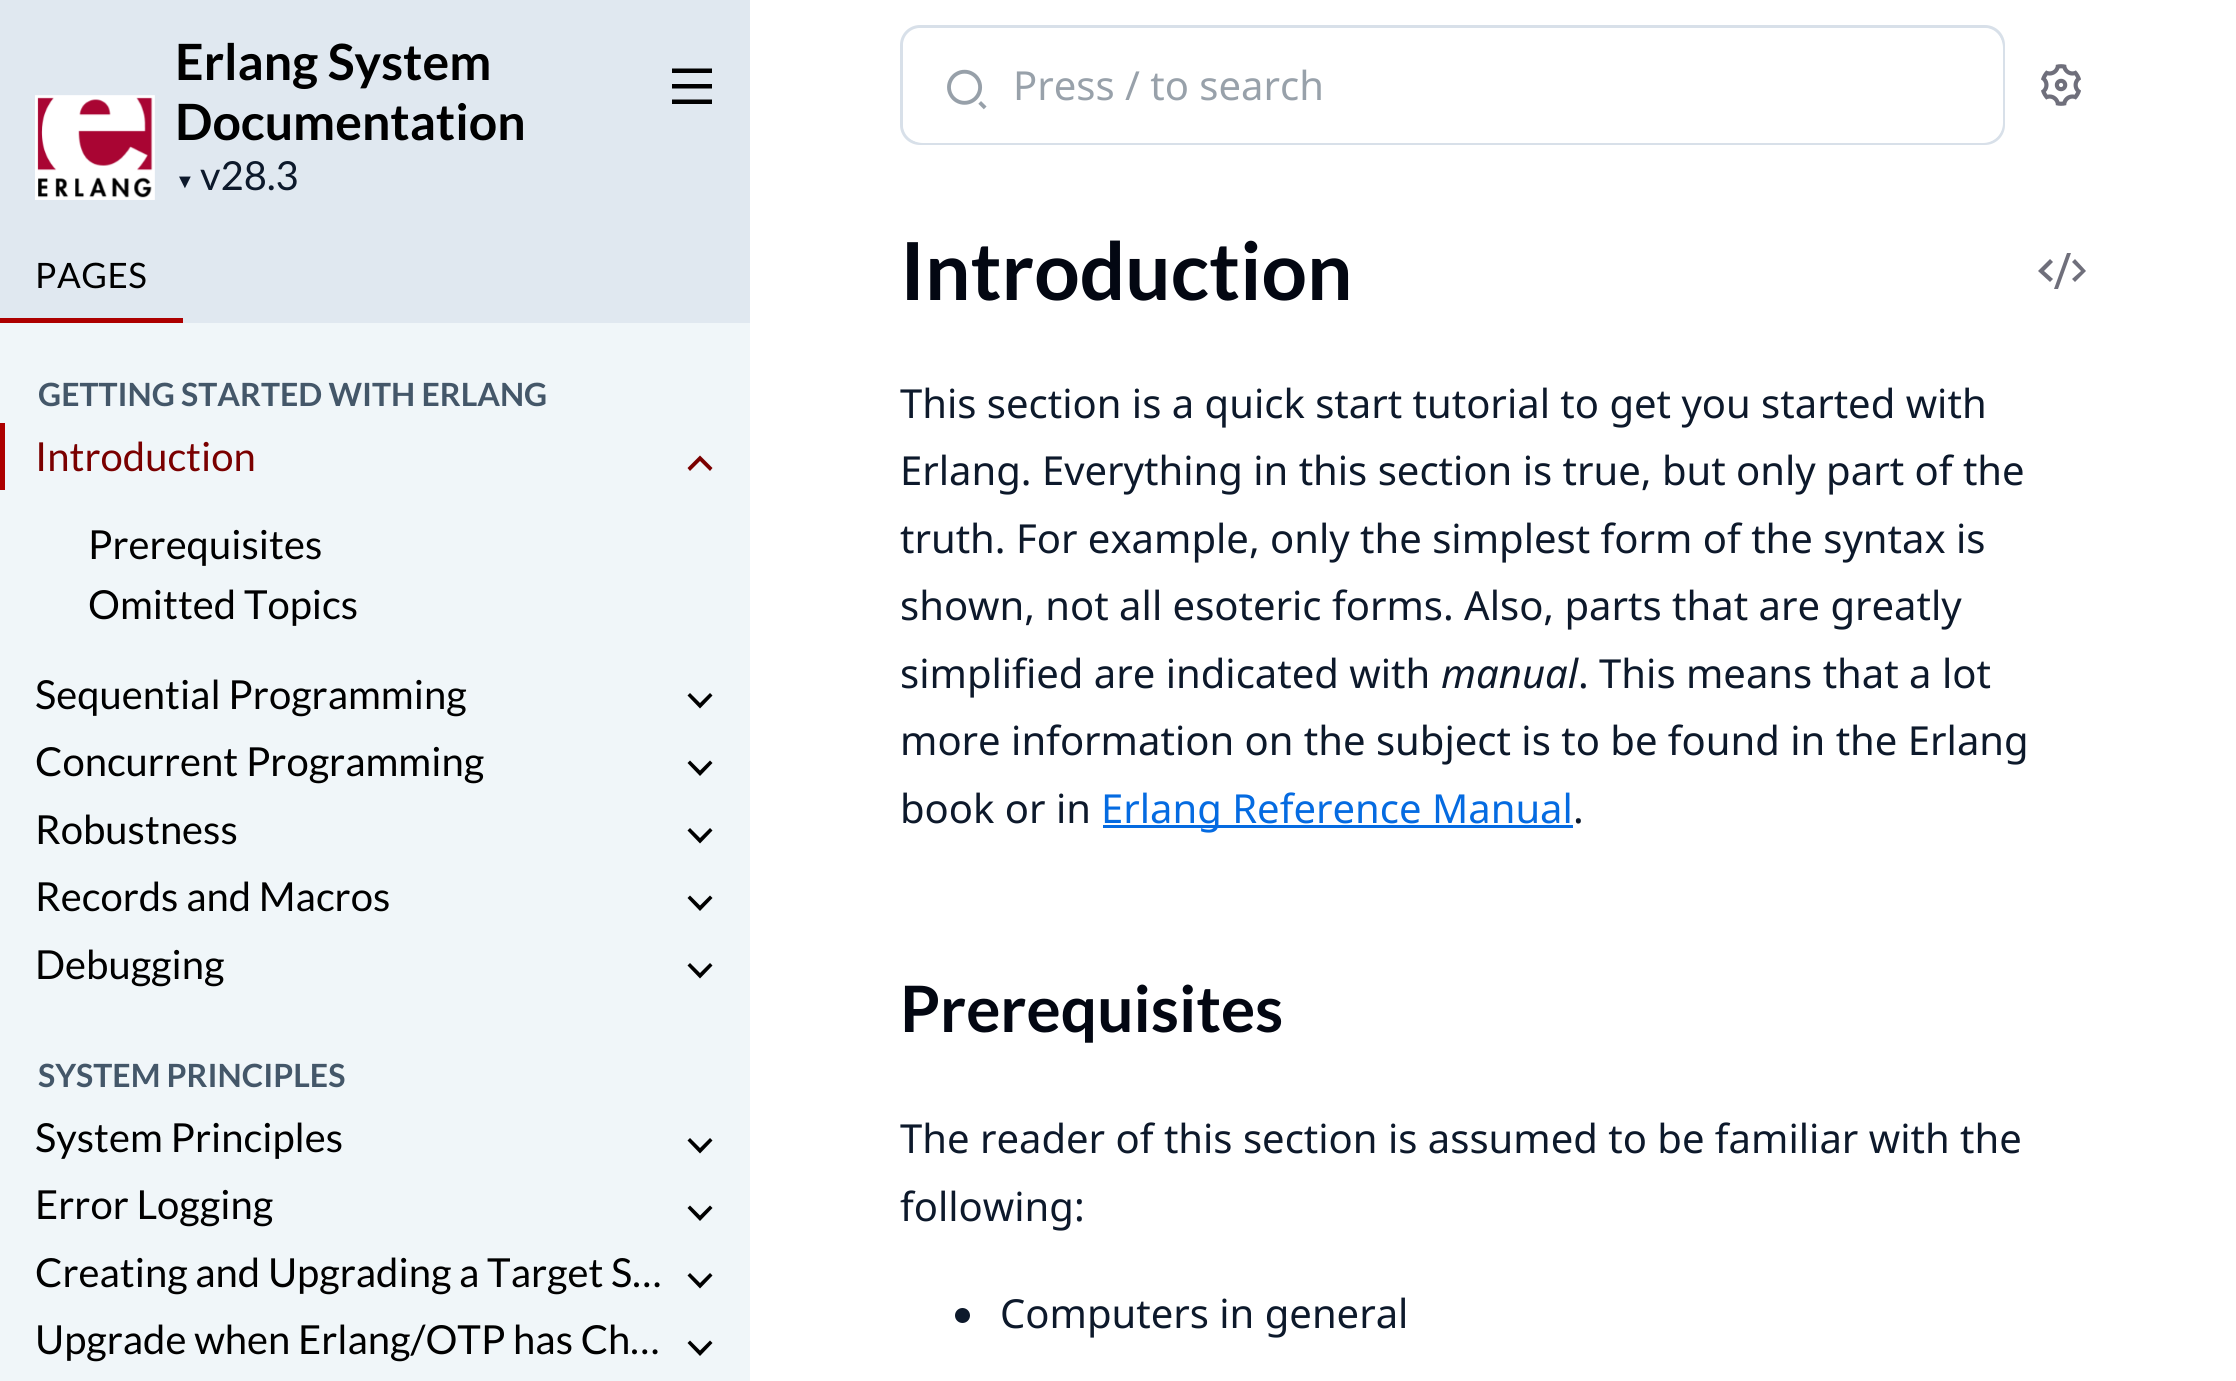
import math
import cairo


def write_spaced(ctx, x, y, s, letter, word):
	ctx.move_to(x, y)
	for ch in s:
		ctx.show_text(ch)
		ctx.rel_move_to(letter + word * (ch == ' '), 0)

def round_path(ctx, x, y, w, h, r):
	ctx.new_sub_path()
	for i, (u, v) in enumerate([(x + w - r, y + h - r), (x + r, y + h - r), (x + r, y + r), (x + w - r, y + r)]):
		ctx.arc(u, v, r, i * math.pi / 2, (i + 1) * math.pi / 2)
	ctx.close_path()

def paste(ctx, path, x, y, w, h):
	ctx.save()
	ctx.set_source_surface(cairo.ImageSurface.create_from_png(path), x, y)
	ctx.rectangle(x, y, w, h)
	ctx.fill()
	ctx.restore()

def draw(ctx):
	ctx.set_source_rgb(1, 1, 1)
	ctx.paint()
	ctx.set_source_rgb(0.941, 0.961, 0.976)
	ctx.rectangle(0, 323, 750, 1058)
	ctx.fill()
	ctx.set_source_rgb(0.878, 0.91, 0.941)
	ctx.rectangle(0, 0, 750, 323)
	ctx.fill()
	paste(ctx, 'media/1.png', 35, 95, 120, 105)
	ctx.select_font_face('Lato', cairo.FONT_SLANT_NORMAL, cairo.FONT_WEIGHT_BOLD)
	ctx.set_font_size(50)
	ctx.set_source_rgb(0, 0, 0)
	ctx.move_to(175, 80)
	ctx.show_text('Erlang System')
	ctx.move_to(175, 140)
	ctx.show_text('Documentation')
	ctx.select_font_face('Liberation Sans')
	ctx.set_font_size(20)
	ctx.set_source_rgb(0.051, 0.098, 0.169)
	ctx.move_to(175, 188)
	ctx.show_text('▼')
	ctx.select_font_face('Lato')
	ctx.set_font_size(40)
	ctx.move_to(200, 190)
	ctx.show_text('v28.3')
	ctx.set_source_rgb(0.678, 0, 0)
	ctx.rectangle(0, 318, 183, 5)
	ctx.fill()
	ctx.set_font_size(35)
	ctx.set_source_rgb(0, 0, 0)
	write_spaced(ctx, 35, 288, 'PAGES', 0.5, 0)
	ctx.select_font_face('Lato', cairo.FONT_SLANT_NORMAL, cairo.FONT_WEIGHT_BOLD)
	ctx.set_font_size(32)
	ctx.set_source_rgb(0.267, 0.341, 0.412)
	ctx.move_to(38, 406)
	ctx.show_text('GETTING STARTED WITH ERLANG')
	ctx.set_source_rgb(0.678, 0, 0)
	ctx.rectangle(0, 423, 5, 67)
	ctx.fill()
	ctx.select_font_face('Lato')
	ctx.set_font_size(40)
	ctx.set_source_rgb(0.478, 0, 0)
	ctx.move_to(35, 471)
	ctx.show_text('Introduction')
	ctx.new_path()
	ctx.move_to(700, 461)
	ctx.line_to(690, 471)
	ctx.line_to(687.5, 468)
	ctx.line_to(700, 455.5)
	ctx.line_to(712.5, 468)
	ctx.line_to(710, 471)
	ctx.close_path()
	ctx.fill()
	ctx.set_source_rgb(0, 0, 0)
	for x, y, s in [
		(88, 559, 'Prerequisites'),
		(88, 619, 'Omitted Topics'),
		(35, 709, 'Sequential Programming'),
	]:
		ctx.move_to(x, y)
		ctx.show_text(s)
	ctx.new_path()
	ctx.move_to(700, 703)
	ctx.line_to(710, 693)
	ctx.line_to(712.5, 695.5)
	ctx.line_to(700, 708.5)
	ctx.line_to(687.5, 695.5)
	ctx.line_to(690, 693)
	ctx.close_path()
	ctx.fill()
	ctx.move_to(35, 776)
	ctx.show_text('Concurrent Programming')
	ctx.new_path()
	ctx.move_to(700, 770.5)
	ctx.line_to(710, 760.5)
	ctx.line_to(712.5, 763)
	ctx.line_to(700, 776)
	ctx.line_to(687.5, 763)
	ctx.line_to(690, 760.5)
	ctx.close_path()
	ctx.fill()
	ctx.move_to(35, 844)
	ctx.show_text('Robustness')
	ctx.new_path()
	ctx.move_to(700, 838)
	ctx.line_to(710, 828)
	ctx.line_to(712.5, 830.5)
	ctx.line_to(700, 843.5)
	ctx.line_to(687.5, 830.5)
	ctx.line_to(690, 828)
	ctx.close_path()
	ctx.fill()
	ctx.move_to(35, 911)
	ctx.show_text('Records and Macros')
	ctx.new_path()
	ctx.move_to(700, 905.5)
	ctx.line_to(710, 895.5)
	ctx.line_to(712.5, 898)
	ctx.line_to(700, 911)
	ctx.line_to(687.5, 898)
	ctx.line_to(690, 895.5)
	ctx.close_path()
	ctx.fill()
	ctx.move_to(35, 979)
	ctx.show_text('Debugging')
	ctx.new_path()
	ctx.move_to(700, 973)
	ctx.line_to(710, 963)
	ctx.line_to(712.5, 965.5)
	ctx.line_to(700, 978.5)
	ctx.line_to(687.5, 965.5)
	ctx.line_to(690, 963)
	ctx.close_path()
	ctx.fill()
	ctx.select_font_face('Lato', cairo.FONT_SLANT_NORMAL, cairo.FONT_WEIGHT_BOLD)
	ctx.set_font_size(32)
	ctx.set_source_rgb(0.267, 0.341, 0.412)
	ctx.move_to(38, 1087)
	ctx.show_text('SYSTEM PRINCIPLES')
	ctx.select_font_face('Lato')
	ctx.set_font_size(40)
	ctx.set_source_rgb(0, 0, 0)
	ctx.move_to(35, 1152)
	ctx.show_text('System Principles')
	ctx.new_path()
	ctx.move_to(700, 1148)
	ctx.line_to(710, 1138)
	ctx.line_to(712.5, 1140.5)
	ctx.line_to(700, 1153.5)
	ctx.line_to(687.5, 1140.5)
	ctx.line_to(690, 1138)
	ctx.close_path()
	ctx.fill()
	ctx.move_to(35, 1219)
	ctx.show_text('Error Logging')
	ctx.new_path()
	ctx.move_to(700, 1215.5)
	ctx.line_to(710, 1205.5)
	ctx.line_to(712.5, 1208)
	ctx.line_to(700, 1221)
	ctx.line_to(687.5, 1208)
	ctx.line_to(690, 1205.5)
	ctx.close_path()
	ctx.fill()
	ctx.move_to(35, 1287)
	ctx.show_text('Creating and Upgrading a Target S…')
	ctx.new_path()
	ctx.move_to(700, 1283)
	ctx.line_to(710, 1273)
	ctx.line_to(712.5, 1275.5)
	ctx.line_to(700, 1288.5)
	ctx.line_to(687.5, 1275.5)
	ctx.line_to(690, 1273)
	ctx.close_path()
	ctx.fill()
	ctx.move_to(35, 1354)
	ctx.show_text('Upgrade when Erlang/OTP has Ch…')
	ctx.new_path()
	ctx.move_to(700, 1350.5)
	ctx.line_to(710, 1340.5)
	ctx.line_to(712.5, 1343)
	ctx.line_to(700, 1356)
	ctx.line_to(687.5, 1343)
	ctx.line_to(690, 1340.5)
	ctx.close_path()
	ctx.fill()
	ctx.new_path()
	ctx.move_to(672, 68.5)
	ctx.line_to(712, 68.5)
	ctx.line_to(712, 73)
	ctx.line_to(672, 73)
	ctx.close_path()
	ctx.move_to(672, 84)
	ctx.line_to(712, 84)
	ctx.line_to(712, 88.5)
	ctx.line_to(672, 88.5)
	ctx.close_path()
	ctx.move_to(672, 99.5)
	ctx.line_to(712, 99.5)
	ctx.line_to(712, 104)
	ctx.line_to(672, 104)
	ctx.close_path()
	ctx.fill()
	round_path(ctx, 901.5, 26.5, 1102, 117, 18.5)
	ctx.set_source_rgb(0.847, 0.878, 0.914)
	ctx.set_line_width(3)
	ctx.stroke()
	ctx.set_source_rgb(1, 1, 1)
	round_path(ctx, 903, 28, 1100, 115, 20)
	ctx.fill()
	paste(ctx, 'media/2.png', 947, 69, 40, 41)
	ctx.select_font_face('Noto Sans')
	ctx.set_source_rgb(0.596, 0.631, 0.667)
	ctx.move_to(1013, 100)
	ctx.show_text('Press / to search')
	paste(ctx, 'media/3.png', 2041, 64, 40, 42)
	ctx.select_font_face('Lato', cairo.FONT_SLANT_NORMAL, cairo.FONT_WEIGHT_BOLD)
	ctx.set_font_size(80)
	ctx.set_source_rgb(0.012, 0.031, 0.071)
	ctx.move_to(900, 300)
	ctx.show_text('Introduction')
	ctx.set_source_rgb(0.435, 0.435, 0.482)
	ctx.new_path()
	ctx.move_to(2086, 271)
	ctx.line_to(2075, 282)
	ctx.line_to(2072, 279)
	ctx.line_to(2081, 271)
	ctx.line_to(2072, 262)
	ctx.line_to(2075, 259)
	ctx.close_path()
	ctx.move_to(2044, 271)
	ctx.line_to(2053, 279)
	ctx.line_to(2050, 282)
	ctx.line_to(2038, 271)
	ctx.line_to(2050, 259)
	ctx.line_to(2053, 262)
	ctx.close_path()
	ctx.move_to(2058, 289)
	ctx.line_to(2054, 289)
	ctx.line_to(2067, 253)
	ctx.line_to(2071, 253)
	ctx.close_path()
	ctx.fill()
	ctx.select_font_face('Noto Sans')
	ctx.set_font_size(40)
	ctx.set_source_rgb(0.051, 0.098, 0.169)
	for x, y, s in [
		(900, 418, 'This section is a quick start tutorial to get you started with'),
		(900, 485, 'Erlang. Everything in this section is true, but only part of the'),
		(900, 553, 'truth. For example, only the simplest form of the syntax is'),
		(900, 620, 'shown, not all esoteric forms. Also, parts that are greatly'),
		(900, 688, 'simplified are indicated with'),
	]:
		ctx.move_to(x, y)
		ctx.show_text(s)
	ctx.select_font_face('Noto Sans', cairo.FONT_SLANT_ITALIC)
	ctx.move_to(1441, 688)
	ctx.show_text('manual')
	ctx.select_font_face('Noto Sans')
	for x, y, s in [
		(1578, 688, '. This means that a lot'),
		(900, 755, 'more information on the subject is to be found in the Erlang'),
		(900, 823, 'book or in'),
	]:
		ctx.move_to(x, y)
		ctx.show_text(s)
	ctx.set_source_rgb(0.02, 0.42, 0.882)
	ctx.rectangle(1103, 825, 470, 3)
	ctx.fill()
	ctx.move_to(1101, 823)
	ctx.show_text('Erlang Reference Manual')
	ctx.set_source_rgb(0.051, 0.098, 0.169)
	ctx.move_to(1573, 823)
	ctx.show_text('.')
	ctx.select_font_face('Lato', cairo.FONT_SLANT_NORMAL, cairo.FONT_WEIGHT_BOLD)
	ctx.set_font_size(64)
	ctx.set_source_rgb(0.012, 0.031, 0.071)
	ctx.move_to(900, 1032)
	ctx.show_text('Prerequisites')
	ctx.select_font_face('Noto Sans')
	ctx.set_font_size(40)
	ctx.set_source_rgb(0.051, 0.098, 0.169)
	ctx.move_to(900, 1153)
	ctx.show_text('The reader of this section is assumed to be familiar with the')
	ctx.move_to(900, 1221)
	ctx.show_text('following:')
	ctx.new_path()
	ctx.arc(962.5, 1315.5, 7.5, 0, 2 * math.pi)
	ctx.fill()
	ctx.move_to(1000, 1328)
	ctx.show_text('Computers in general')


surface = cairo.ImageSurface(cairo.FORMAT_RGB24, 2236, 1381)
ctx = cairo.Context(surface)
options = cairo.FontOptions()
options.set_hint_metrics(cairo.HINT_METRICS_OFF)
options.set_hint_style(cairo.HINT_STYLE_NONE)
ctx.set_font_options(options)
ctx.set_miter_limit(4)
draw(ctx)
surface.write_to_png('image.png')
